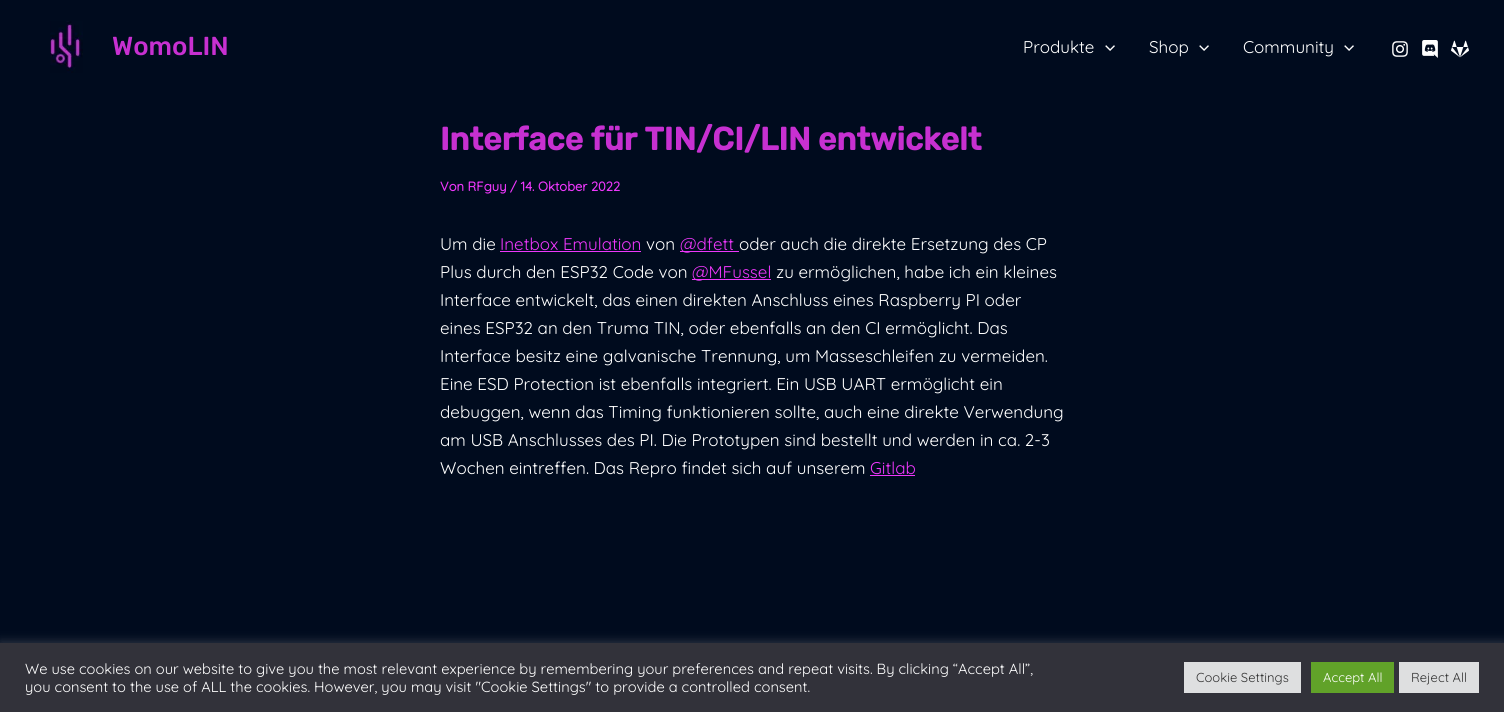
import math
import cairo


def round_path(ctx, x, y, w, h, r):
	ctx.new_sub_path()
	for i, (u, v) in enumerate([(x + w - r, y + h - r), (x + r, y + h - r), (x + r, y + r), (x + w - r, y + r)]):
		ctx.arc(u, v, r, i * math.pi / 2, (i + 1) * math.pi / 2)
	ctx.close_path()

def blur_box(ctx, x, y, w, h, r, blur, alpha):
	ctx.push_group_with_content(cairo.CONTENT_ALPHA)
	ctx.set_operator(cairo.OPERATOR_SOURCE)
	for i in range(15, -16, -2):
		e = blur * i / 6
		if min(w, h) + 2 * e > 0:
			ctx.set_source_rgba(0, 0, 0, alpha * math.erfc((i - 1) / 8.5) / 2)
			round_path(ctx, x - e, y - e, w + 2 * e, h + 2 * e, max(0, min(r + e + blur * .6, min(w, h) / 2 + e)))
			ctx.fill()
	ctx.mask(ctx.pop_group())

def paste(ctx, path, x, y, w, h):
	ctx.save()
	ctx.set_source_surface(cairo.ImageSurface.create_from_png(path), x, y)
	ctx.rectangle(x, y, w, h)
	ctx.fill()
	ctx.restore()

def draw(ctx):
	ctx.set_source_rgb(0, 0.043, 0.118)
	ctx.paint()
	paste(ctx, 'media/1.png', 50, 21, 33, 52)
	ctx.select_font_face('Rubik Light')
	ctx.set_font_size(26)
	ctx.set_source_rgb(0.78, 0.188, 0.82)
	ctx.move_to(112, 55)
	ctx.show_text('WomoLIN')
	ctx.select_font_face('Quicksand Light')
	ctx.set_font_size(17)
	ctx.set_source_rgb(1, 1, 1)
	ctx.move_to(1023, 53)
	ctx.show_text('Produkte')
	paste(ctx, 'media/2.png', 1105, 45, 10, 6)
	ctx.move_to(1149, 53)
	ctx.show_text('Shop')
	paste(ctx, 'media/2.png', 1199, 45, 10, 6)
	ctx.move_to(1243, 53)
	ctx.show_text('Community')
	paste(ctx, 'media/2.png', 1344, 45, 10, 6)
	paste(ctx, 'media/3.png', 1392, 41, 16, 16)
	paste(ctx, 'media/4.png', 1422, 40, 16, 18)
	paste(ctx, 'media/5.png', 1451, 40, 18, 18)
	ctx.select_font_face('Rubik', cairo.FONT_SLANT_NORMAL, cairo.FONT_WEIGHT_BOLD)
	ctx.set_font_size(32)
	ctx.set_source_rgb(0.78, 0.188, 0.82)
	ctx.move_to(440, 150)
	ctx.show_text('Interface für TIN/CI/LIN entwickelt')
	ctx.select_font_face('Quicksand', cairo.FONT_SLANT_NORMAL, cairo.FONT_WEIGHT_BOLD)
	ctx.set_font_size(13)
	ctx.set_source_rgb(0.929, 0.216, 0.98)
	ctx.move_to(440, 191)
	ctx.show_text('Von RFguy / 14. Oktober 2022')
	ctx.select_font_face('Quicksand Light')
	ctx.set_font_size(17)
	ctx.set_source_rgb(1, 1, 1)
	ctx.move_to(440, 250)
	ctx.show_text('Um die')
	ctx.set_source_rgb(0.929, 0.216, 0.98)
	ctx.move_to(500, 250)
	ctx.show_text('Inetbox Emulation')
	ctx.rectangle(500, 251, 141, 1)
	ctx.fill()
	ctx.set_source_rgb(1, 1, 1)
	ctx.move_to(646, 250)
	ctx.show_text('von')
	ctx.set_source_rgb(0.929, 0.216, 0.98)
	ctx.rectangle(680, 251, 59, 1)
	ctx.fill()
	ctx.move_to(680, 250)
	ctx.show_text('@dfett')
	ctx.set_source_rgb(1, 1, 1)
	ctx.move_to(739, 250)
	ctx.show_text('oder auch die direkte Ersetzung des CP')
	ctx.move_to(440, 278)
	ctx.show_text('Plus durch den ESP32 Code von')
	ctx.set_source_rgb(0.929, 0.216, 0.98)
	ctx.rectangle(692, 279, 79, 1)
	ctx.fill()
	ctx.move_to(692, 278)
	ctx.show_text('@MFussel')
	ctx.set_source_rgb(1, 1, 1)
	for x, y, s in [
		(776, 278, 'zu ermöglichen, habe ich ein kleines'),
		(440, 306, 'Interface entwickelt, das einen direkten Anschluss eines Raspberry PI oder'),
		(440, 334, 'eines ESP32 an den Truma TIN, oder ebenfalls an den CI ermöglicht. Das'),
		(440, 362, 'Interface besitz eine galvanische Trennung, um Masseschleifen zu vermeiden.'),
		(440, 390, 'Eine ESD Protection ist ebenfalls integriert. Ein USB UART ermöglicht ein'),
		(440, 418, 'debuggen, wenn das Timing funktionieren sollte, auch eine direkte Verwendung'),
		(440, 446, 'am USB Anschlusses des PI. Die Prototypen sind bestellt und werden in ca. 2-3'),
		(440, 474, 'Wochen eintreffen. Das Repro findet sich auf unserem'),
	]:
		ctx.move_to(x, y)
		ctx.show_text(s)
	ctx.set_source_rgb(0.929, 0.216, 0.98)
	ctx.move_to(870, 474)
	ctx.show_text('Gitlab')
	ctx.rectangle(870, 475, 45, 1)
	ctx.fill()
	ctx.set_source_rgb(0.675, 0.671, 0.671)
	blur_box(ctx, 0, 642, 1504, 69, 0, 5, 0.3)
	ctx.set_source_rgb(0.196, 0.196, 0.227)
	ctx.rectangle(0, 643, 1504, 69)
	ctx.fill()
	ctx.set_font_size(14.67)
	ctx.set_source_rgb(1, 1, 1)
	ctx.move_to(25, 674)
	ctx.show_text('We use cookies on our website to give you the most relevant experience by remembering your preferences and repeat visits. By clicking “Accept All”,')
	ctx.move_to(25, 692)
	ctx.show_text('you consent to the use of ALL the cookies. However, you may visit "Cookie Settings" to provide a controlled consent.')
	ctx.set_source_rgb(0.871, 0.875, 0.878)
	ctx.rectangle(1184, 662, 117, 31)
	ctx.fill()
	ctx.set_font_size(13)
	ctx.set_source_rgb(0.2, 0.2, 0.2)
	ctx.move_to(1196, 682)
	ctx.show_text('Cookie Settings')
	ctx.set_source_rgb(0.38, 0.635, 0.161)
	ctx.rectangle(1311, 662, 83, 31)
	ctx.fill()
	ctx.set_source_rgb(1, 1, 1)
	ctx.move_to(1323, 682)
	ctx.show_text('Accept All')
	ctx.set_source_rgb(0.871, 0.875, 0.878)
	ctx.rectangle(1399, 662, 80, 31)
	ctx.fill()
	ctx.set_source_rgb(0.2, 0.2, 0.2)
	ctx.move_to(1411, 682)
	ctx.show_text('Reject All')


surface = cairo.ImageSurface(cairo.FORMAT_RGB24, 1504, 712)
ctx = cairo.Context(surface)
options = cairo.FontOptions()
options.set_hint_metrics(cairo.HINT_METRICS_OFF)
options.set_hint_style(cairo.HINT_STYLE_NONE)
ctx.set_font_options(options)
ctx.set_miter_limit(4)
draw(ctx)
surface.write_to_png('image.png')
